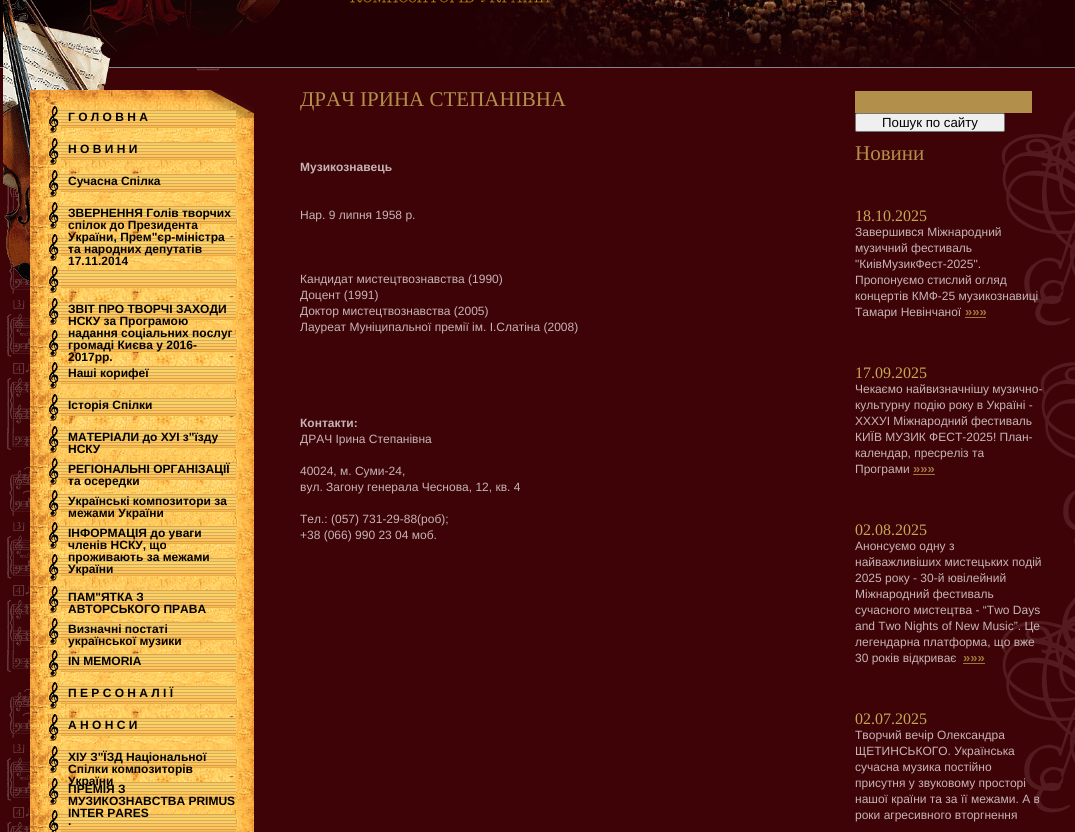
import math
import cairo


def round_path(ctx, x, y, w, h, r):
	ctx.new_sub_path()
	for i, (u, v) in enumerate([(x + w - r, y + h - r), (x + r, y + h - r), (x + r, y + r), (x + w - r, y + r)]):
		ctx.arc(u, v, r, i * math.pi / 2, (i + 1) * math.pi / 2)
	ctx.close_path()

def paste(ctx, path, x, y, w, h):
	ctx.save()
	ctx.set_source_surface(cairo.ImageSurface.create_from_png(path), x, y)
	ctx.rectangle(x, y, w, h)
	ctx.fill()
	ctx.restore()

def draw(ctx):
	ctx.set_source_rgb(0.243, 0.012, 0.027)
	ctx.paint()
	paste(ctx, 'media/1.png', 7, 68, 224, 764)
	paste(ctx, 'media/2.png', 1001, 68, 74, 745)
	ctx.set_source_rgb(0.137, 0, 0.016)
	ctx.rectangle(0, 0, 1075, 67)
	ctx.fill()
	paste(ctx, 'media/3.png', 477, 0, 565, 67)
	ctx.set_source_rgb(0.525, 0.525, 0.525)
	ctx.rectangle(0, 67, 1075, 1)
	ctx.fill()
	paste(ctx, 'media/4.png', 0, 0, 284, 64)
	paste(ctx, 'media/5.png', 350, 0, 200, 3)
	paste(ctx, 'media/6.png', 3, 0, 108, 282)
	paste(ctx, 'media/7.png', 30, 118, 224, 714)
	paste(ctx, 'media/8.png', 30, 90, 224, 28)
	paste(ctx, 'media/9.png', 61, 110, 175, 18)
	paste(ctx, 'media/10.png', 48, 106, 13, 27)
	ctx.select_font_face('Liberation Sans', cairo.FONT_SLANT_NORMAL, cairo.FONT_WEIGHT_BOLD)
	ctx.set_font_size(12)
	ctx.set_source_rgb(0, 0, 0)
	ctx.move_to(68, 121)
	ctx.show_text('Г О Л О В Н А')
	paste(ctx, 'media/9.png', 61, 142, 175, 18)
	paste(ctx, 'media/10.png', 48, 138, 13, 27)
	ctx.move_to(68, 153)
	ctx.show_text('Н О В И Н И')
	paste(ctx, 'media/9.png', 61, 174, 175, 18)
	paste(ctx, 'media/10.png', 48, 170, 13, 27)
	ctx.move_to(68, 185)
	ctx.show_text('Сучасна Cпілка')
	paste(ctx, 'media/9.png', 61, 206, 175, 18)
	paste(ctx, 'media/10.png', 48, 202, 13, 27)
	ctx.move_to(68, 217)
	ctx.show_text('ЗВЕРНЕННЯ Голів творчих')
	ctx.move_to(68, 229)
	ctx.show_text('спілок до Президента')
	paste(ctx, 'media/9.png', 61, 238, 175, 18)
	for x, y, s in [
		(68, 241, 'України, Прем"єр-міністра'),
		(68, 253, 'та народних депутатів'),
		(68, 265, '17.11.2014'),
	]:
		ctx.move_to(x, y)
		ctx.show_text(s)
	paste(ctx, 'media/10.png', 48, 234, 13, 27)
	ctx.move_to(68, 249)
	ctx.show_text('.')
	paste(ctx, 'media/9.png', 61, 270, 175, 18)
	paste(ctx, 'media/10.png', 48, 266, 13, 27)
	paste(ctx, 'media/9.png', 61, 302, 175, 18)
	paste(ctx, 'media/10.png', 48, 298, 13, 27)
	ctx.move_to(68, 313)
	ctx.show_text('ЗВІТ ПРО ТВОРЧІ ЗАХОДИ')
	ctx.move_to(68, 325)
	ctx.show_text('НСКУ за Програмою')
	paste(ctx, 'media/9.png', 61, 334, 175, 18)
	for x, y, s in [
		(68, 337, 'надання соціальних послуг'),
		(68, 349, 'громаді Києва у 2016-'),
		(68, 361, '2017рр.'),
	]:
		ctx.move_to(x, y)
		ctx.show_text(s)
	paste(ctx, 'media/10.png', 48, 330, 13, 27)
	paste(ctx, 'media/9.png', 61, 366, 175, 18)
	paste(ctx, 'media/10.png', 48, 362, 13, 27)
	ctx.move_to(68, 377)
	ctx.show_text('Наші корифеї')
	paste(ctx, 'media/9.png', 61, 398, 175, 18)
	paste(ctx, 'media/10.png', 48, 394, 13, 27)
	ctx.move_to(68, 409)
	ctx.show_text('Історія Спілки')
	paste(ctx, 'media/9.png', 61, 430, 175, 18)
	paste(ctx, 'media/10.png', 48, 426, 13, 27)
	ctx.move_to(68, 441)
	ctx.show_text('МАТЕРІАЛИ до ХУІ з"їзду')
	ctx.move_to(68, 453)
	ctx.show_text('НСКУ')
	paste(ctx, 'media/9.png', 61, 462, 175, 18)
	paste(ctx, 'media/10.png', 48, 458, 13, 27)
	ctx.move_to(68, 473)
	ctx.show_text('РЕГІОНАЛЬНІ ОРГАНІЗАЦІЇ')
	ctx.move_to(68, 485)
	ctx.show_text('та осередки')
	paste(ctx, 'media/9.png', 61, 494, 175, 18)
	paste(ctx, 'media/10.png', 48, 490, 13, 27)
	ctx.move_to(68, 505)
	ctx.show_text('Українські композитори за')
	ctx.move_to(68, 517)
	ctx.show_text('межами України')
	paste(ctx, 'media/9.png', 61, 526, 175, 18)
	paste(ctx, 'media/10.png', 48, 522, 13, 27)
	ctx.move_to(68, 537)
	ctx.show_text('ІНФОРМАЦІЯ до уваги')
	ctx.move_to(68, 549)
	ctx.show_text('членів НСКУ, що')
	paste(ctx, 'media/9.png', 61, 558, 175, 18)
	ctx.move_to(68, 561)
	ctx.show_text('проживають за межами')
	ctx.move_to(68, 573)
	ctx.show_text('України')
	paste(ctx, 'media/10.png', 48, 554, 13, 27)
	paste(ctx, 'media/9.png', 61, 590, 175, 18)
	paste(ctx, 'media/10.png', 48, 586, 13, 27)
	ctx.move_to(68, 601)
	ctx.show_text('ПАМ"ЯТКА З')
	ctx.move_to(68, 613)
	ctx.show_text('АВТОРСЬКОГО ПРАВА')
	paste(ctx, 'media/9.png', 61, 622, 175, 18)
	paste(ctx, 'media/10.png', 48, 618, 13, 27)
	ctx.move_to(68, 633)
	ctx.show_text('Визначні постаті')
	ctx.move_to(68, 645)
	ctx.show_text('української музики')
	paste(ctx, 'media/9.png', 61, 654, 175, 18)
	paste(ctx, 'media/10.png', 48, 650, 13, 27)
	ctx.move_to(68, 665)
	ctx.show_text('IN MEMORIA')
	paste(ctx, 'media/9.png', 61, 686, 175, 18)
	paste(ctx, 'media/10.png', 48, 682, 13, 27)
	ctx.move_to(68, 697)
	ctx.show_text('П Е Р С О Н А Л І Ї')
	paste(ctx, 'media/9.png', 61, 718, 175, 18)
	paste(ctx, 'media/10.png', 48, 714, 13, 27)
	ctx.move_to(68, 729)
	ctx.show_text('А Н О Н С И')
	paste(ctx, 'media/9.png', 61, 750, 175, 18)
	paste(ctx, 'media/10.png', 48, 746, 13, 27)
	ctx.move_to(68, 761)
	ctx.show_text('ХІУ З"ЇЗД Національної')
	ctx.move_to(68, 773)
	ctx.show_text('Спілки композиторів')
	paste(ctx, 'media/9.png', 61, 782, 175, 18)
	ctx.move_to(68, 785)
	ctx.show_text('України')
	paste(ctx, 'media/10.png', 48, 778, 13, 27)
	ctx.move_to(68, 793)
	ctx.show_text('ПРЕМІЯ З')
	ctx.move_to(68, 805)
	ctx.show_text('МУЗИКОЗНАВСТВА PRIMUS')
	paste(ctx, 'media/9.png', 61, 814, 175, 18)
	ctx.move_to(68, 817)
	ctx.show_text('INTER PARES')
	paste(ctx, 'media/11.png', 48, 810, 13, 22)
	ctx.move_to(68, 825)
	ctx.show_text('.')
	ctx.select_font_face('Liberation Serif')
	ctx.set_font_size(21)
	ctx.set_source_rgb(0.698, 0.561, 0.29)
	ctx.move_to(300, 106)
	ctx.show_text('ДРАЧ ІРИНА СТЕПАНІВНА')
	ctx.select_font_face('Liberation Sans', cairo.FONT_SLANT_NORMAL, cairo.FONT_WEIGHT_BOLD)
	ctx.set_font_size(12)
	ctx.set_source_rgb(0.773, 0.706, 0.71)
	ctx.move_to(300, 171)
	ctx.show_text('Музикознавець')
	ctx.select_font_face('Liberation Sans')
	for x, y, s in [
		(300, 219, 'Нар. 9 липня 1958 р.'),
		(300, 283, 'Кандидат мистецтвознавства (1990)'),
		(300, 299, 'Доцент (1991)'),
		(300, 315, 'Доктор мистецтвознавства (2005)'),
		(300, 331, 'Лауреат Муніципальної премії ім. І.Слатіна (2008)'),
	]:
		ctx.move_to(x, y)
		ctx.show_text(s)
	ctx.select_font_face('Liberation Sans', cairo.FONT_SLANT_NORMAL, cairo.FONT_WEIGHT_BOLD)
	ctx.move_to(300, 427)
	ctx.show_text('Контакти:')
	ctx.select_font_face('Liberation Sans')
	for x, y, s in [
		(300, 443, 'ДРАЧ Ірина Степанівна'),
		(300, 475, '40024, м. Суми-24,'),
		(300, 491, 'вул. Загону генерала Чеснова, 12, кв. 4'),
		(300, 523, 'Тел.: (057) 731-29-88(роб);'),
		(300, 539, '+38 (066) 990 23 04 моб.'),
	]:
		ctx.move_to(x, y)
		ctx.show_text(s)
	ctx.set_source_rgb(0.698, 0.561, 0.29)
	ctx.rectangle(855, 91, 177, 22)
	ctx.fill()
	ctx.set_source_rgb(0.937, 0.937, 0.937)
	round_path(ctx, 855.5, 113.5, 149, 18, 1.5)
	ctx.fill_preserve()
	ctx.set_source_rgb(0.463, 0.463, 0.463)
	ctx.set_line_width(1)
	ctx.stroke()
	ctx.set_font_size(13.25)
	ctx.set_source_rgb(0, 0, 0)
	ctx.move_to(882, 127)
	ctx.show_text('Пошук по сайту')
	ctx.select_font_face('Liberation Serif')
	ctx.set_font_size(21)
	ctx.set_source_rgb(0.698, 0.561, 0.29)
	ctx.move_to(855, 160)
	ctx.show_text('Новини')
	ctx.set_font_size(16)
	ctx.set_source_rgb(0.773, 0.655, 0.337)
	ctx.move_to(855, 221)
	ctx.show_text('18.10.2025')
	ctx.select_font_face('Liberation Sans')
	ctx.set_font_size(12)
	ctx.set_source_rgb(0.773, 0.706, 0.71)
	for x, y, s in [
		(855, 236, 'Завершився Міжнародний'),
		(855, 252, 'музичний фестиваль'),
		(855, 268, '"КиівМузикФест-2025".'),
		(855, 284, 'Пропонуємо стислий огляд'),
		(855, 300, 'концертів КМФ-25 музикознавиці'),
		(855, 316, 'Тамари Невінчаної'),
	]:
		ctx.move_to(x, y)
		ctx.show_text(s)
	ctx.select_font_face('Liberation Sans', cairo.FONT_SLANT_NORMAL, cairo.FONT_WEIGHT_BOLD)
	ctx.set_font_size(13)
	ctx.set_source_rgb(0.616, 0.463, 0.243)
	ctx.move_to(965, 316)
	ctx.show_text('»»»')
	ctx.rectangle(965, 317, 21, 1)
	ctx.fill()
	ctx.select_font_face('Liberation Serif')
	ctx.set_font_size(16)
	ctx.set_source_rgb(0.773, 0.655, 0.337)
	ctx.move_to(855, 378)
	ctx.show_text('17.09.2025')
	ctx.select_font_face('Liberation Sans')
	ctx.set_font_size(12)
	ctx.set_source_rgb(0.773, 0.706, 0.71)
	for x, y, s in [
		(855, 393, 'Чекаємо найвизначнішу музично-'),
		(855, 409, 'культурну подію року в Україні -'),
		(855, 425, 'ХХХУІ Міжнародний фестиваль'),
		(855, 441, 'КИЇВ МУЗИК ФЕСТ-2025! План-'),
		(855, 457, 'календар, пресреліз та'),
		(855, 473, 'Програми'),
	]:
		ctx.move_to(x, y)
		ctx.show_text(s)
	ctx.select_font_face('Liberation Sans', cairo.FONT_SLANT_NORMAL, cairo.FONT_WEIGHT_BOLD)
	ctx.set_font_size(13)
	ctx.set_source_rgb(0.616, 0.463, 0.243)
	ctx.move_to(913, 473)
	ctx.show_text('»»»')
	ctx.rectangle(913, 474, 22, 1)
	ctx.fill()
	ctx.select_font_face('Liberation Serif')
	ctx.set_font_size(16)
	ctx.set_source_rgb(0.773, 0.655, 0.337)
	ctx.move_to(855, 535)
	ctx.show_text('02.08.2025')
	ctx.select_font_face('Liberation Sans')
	ctx.set_font_size(12)
	ctx.set_source_rgb(0.773, 0.706, 0.71)
	for x, y, s in [
		(855, 550, 'Анонсуємо одну з'),
		(855, 566, 'найважливіших мистецьких подій'),
		(855, 582, '2025 року - 30-й ювілейний'),
		(855, 598, 'Міжнародний фестиваль'),
		(855, 614, 'сучасного мистецтва - “Two Days'),
		(855, 630, 'and Two Nights of New Music”. Це'),
		(855, 646, 'легендарна платформа, що вже'),
		(855, 662, '30 років відкриває'),
	]:
		ctx.move_to(x, y)
		ctx.show_text(s)
	ctx.select_font_face('Liberation Sans', cairo.FONT_SLANT_NORMAL, cairo.FONT_WEIGHT_BOLD)
	ctx.set_font_size(13)
	ctx.set_source_rgb(0.616, 0.463, 0.243)
	ctx.move_to(963, 662)
	ctx.show_text('»»»')
	ctx.rectangle(963, 663, 22, 1)
	ctx.fill()
	ctx.select_font_face('Liberation Serif')
	ctx.set_font_size(16)
	ctx.set_source_rgb(0.773, 0.655, 0.337)
	ctx.move_to(855, 724)
	ctx.show_text('02.07.2025')
	ctx.select_font_face('Liberation Sans')
	ctx.set_font_size(12)
	ctx.set_source_rgb(0.773, 0.706, 0.71)
	for x, y, s in [
		(855, 739, 'Творчий вечір Олександра'),
		(855, 755, 'ЩЕТИНСЬКОГО. Українська'),
		(855, 771, 'сучасна музика постійно'),
		(855, 787, 'присутня у звуковому просторі'),
		(855, 803, 'нашої країни та за її межами. А в'),
		(855, 819, 'роки агресивного вторгнення'),
	]:
		ctx.move_to(x, y)
		ctx.show_text(s)


surface = cairo.ImageSurface(cairo.FORMAT_RGB24, 1075, 832)
ctx = cairo.Context(surface)
options = cairo.FontOptions()
options.set_hint_metrics(cairo.HINT_METRICS_OFF)
options.set_hint_style(cairo.HINT_STYLE_NONE)
ctx.set_font_options(options)
ctx.set_miter_limit(4)
draw(ctx)
surface.write_to_png('image.png')
